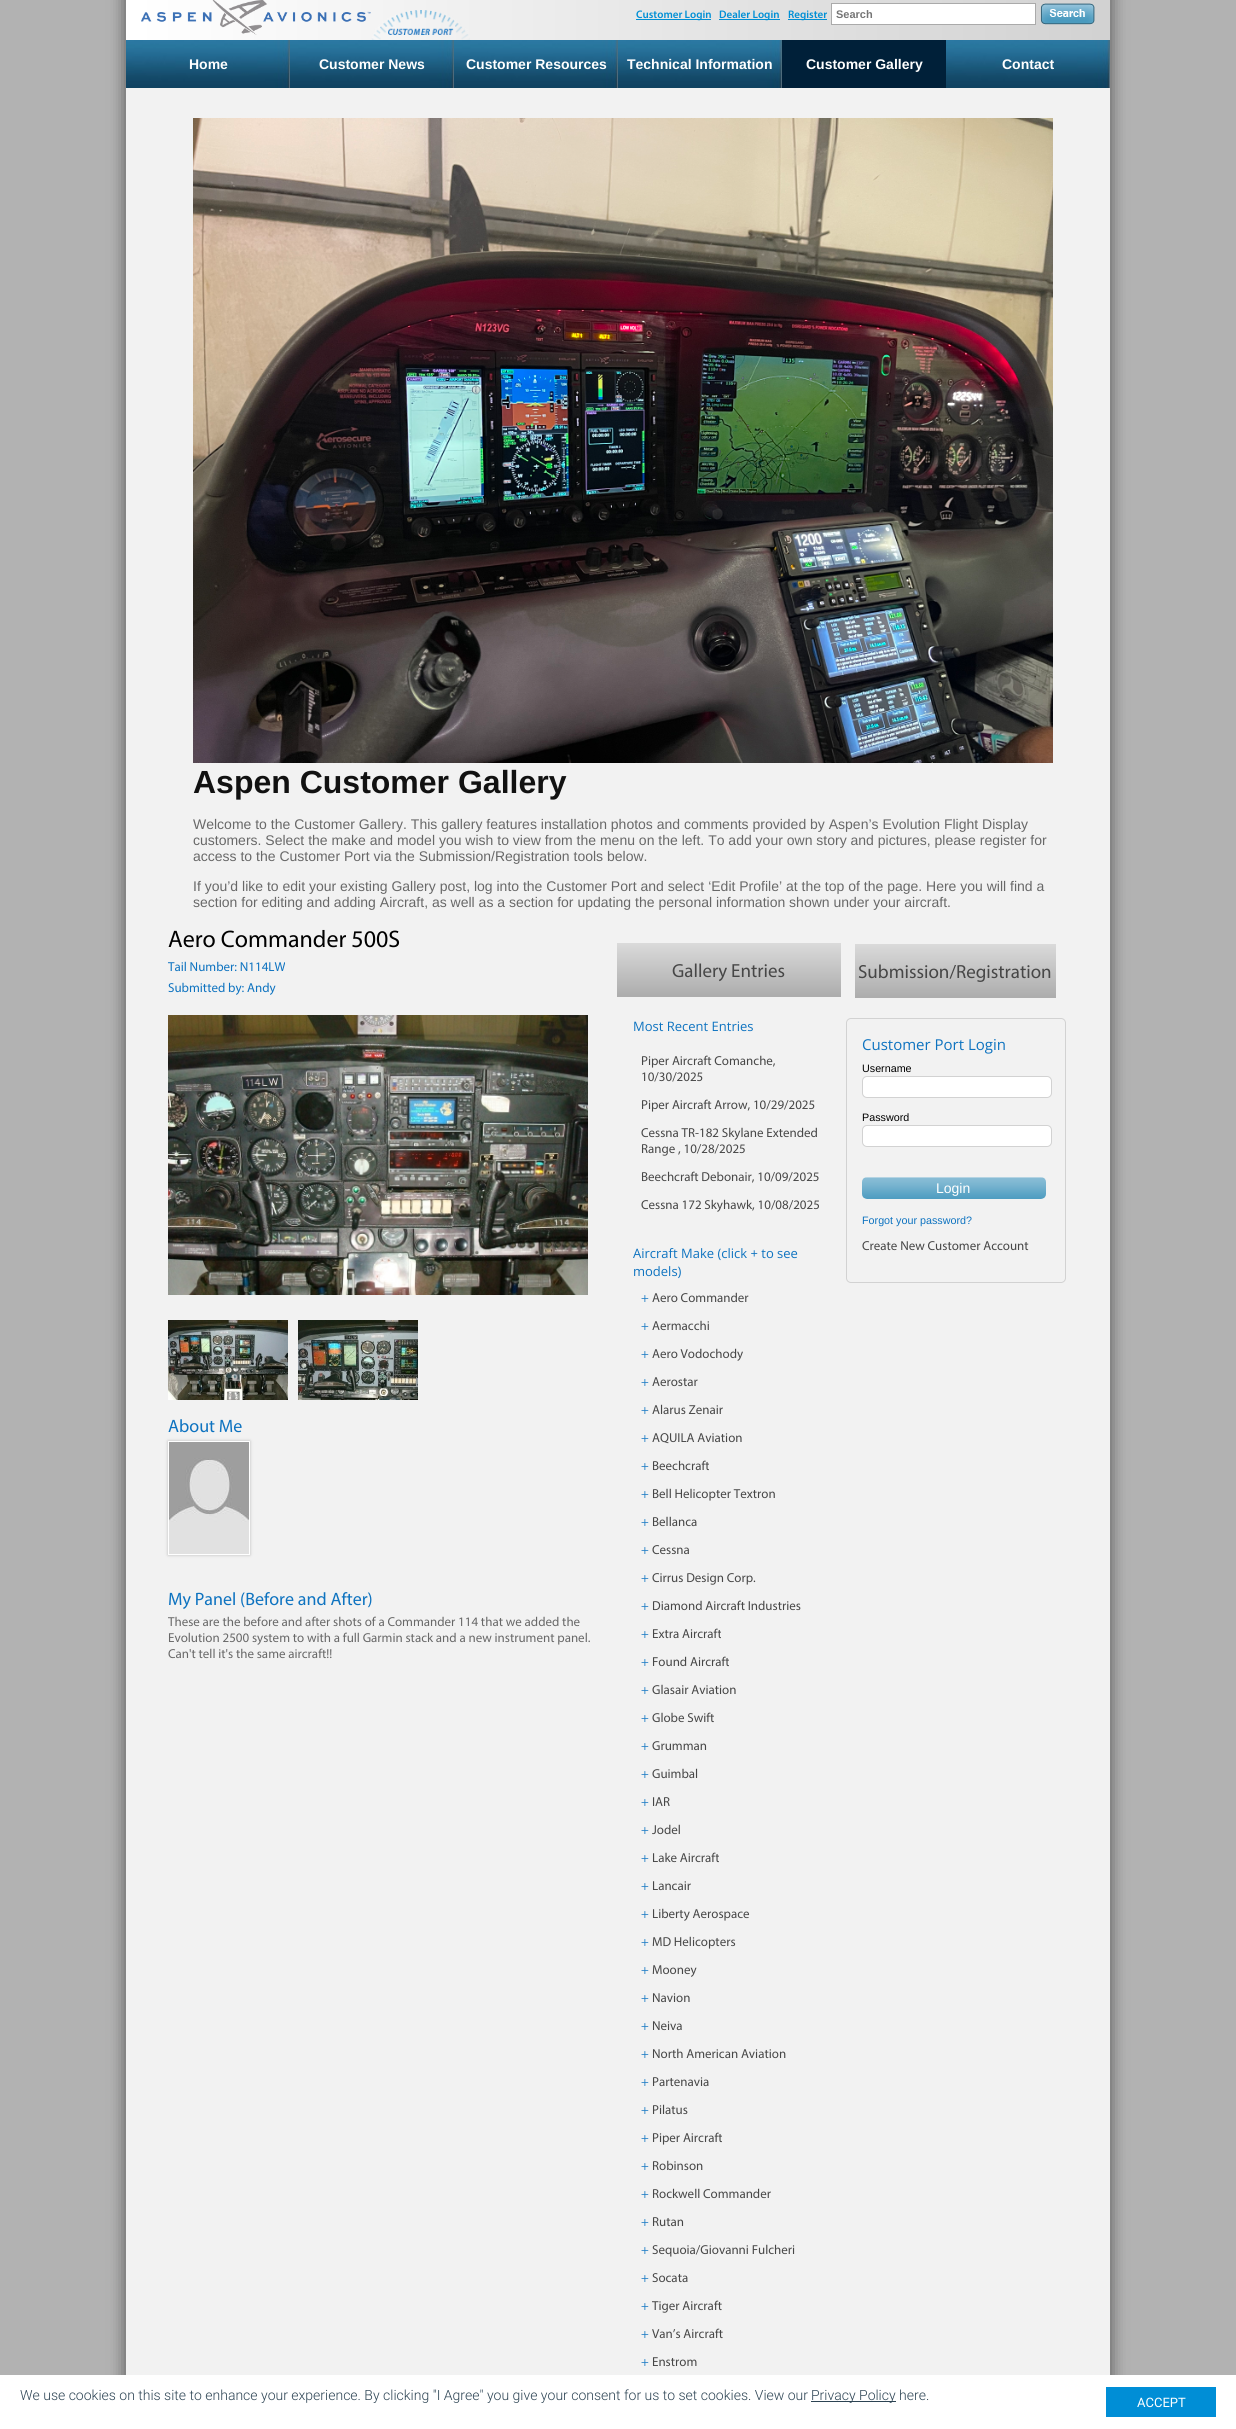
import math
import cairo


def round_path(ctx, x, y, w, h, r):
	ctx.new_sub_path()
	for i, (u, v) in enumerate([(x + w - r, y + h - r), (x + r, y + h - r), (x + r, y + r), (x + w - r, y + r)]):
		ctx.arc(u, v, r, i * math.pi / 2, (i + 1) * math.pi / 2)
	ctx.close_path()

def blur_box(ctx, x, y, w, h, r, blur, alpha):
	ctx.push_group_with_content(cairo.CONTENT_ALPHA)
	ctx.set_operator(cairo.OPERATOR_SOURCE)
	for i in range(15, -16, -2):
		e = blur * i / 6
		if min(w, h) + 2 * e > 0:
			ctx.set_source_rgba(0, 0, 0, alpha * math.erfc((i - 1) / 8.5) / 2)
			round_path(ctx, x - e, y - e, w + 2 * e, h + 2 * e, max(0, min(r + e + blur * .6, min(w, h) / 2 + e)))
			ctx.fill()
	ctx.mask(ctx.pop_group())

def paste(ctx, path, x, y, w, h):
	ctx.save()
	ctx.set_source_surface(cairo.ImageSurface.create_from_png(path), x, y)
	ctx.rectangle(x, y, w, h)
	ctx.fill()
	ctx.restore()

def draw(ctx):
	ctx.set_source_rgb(0.698, 0.698, 0.698)
	ctx.paint()
	ctx.set_source_rgb(0, 0, 0)
	blur_box(ctx, 125, -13, 986, 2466, 0, 8, 0.5)
	ctx.set_source_rgb(0.949, 0.949, 0.949)
	ctx.rectangle(126, 88, 984, 2287)
	ctx.fill()
	gradient = cairo.LinearGradient(126, 14, 1110, 14)
	gradient.add_color_stop_rgba(0.01, 1, 1, 1, 1)
	gradient.add_color_stop_rgba(0.99, 0.824, 0.824, 0.824, 1)
	ctx.set_source(gradient)
	ctx.rectangle(126, 0, 984, 40)
	ctx.fill()
	paste(ctx, 'media/1.png', 141, 0, 230, 35)
	paste(ctx, 'media/2.png', 371, 10, 99, 30)
	ctx.set_source_rgb(0, 0.561, 0.835)
	ctx.rectangle(636, 19, 75, 1)
	ctx.fill()
	ctx.select_font_face('Myriad SemiBold')
	ctx.set_font_size(11)
	ctx.move_to(636, 18)
	ctx.show_text('Customer Login')
	ctx.rectangle(719, 19, 61, 1)
	ctx.fill()
	ctx.move_to(719, 18)
	ctx.show_text('Dealer Login')
	ctx.rectangle(788, 19, 39, 1)
	ctx.fill()
	ctx.move_to(788, 18)
	ctx.show_text('Register')
	ctx.set_source_rgb(1, 1, 1)
	ctx.rectangle(831.5, 3.5, 204, 21)
	ctx.fill_preserve()
	ctx.set_source_rgb(0.667, 0.667, 0.667)
	ctx.set_line_width(1)
	ctx.stroke()
	ctx.select_font_face('Liberation Sans', cairo.FONT_SLANT_NORMAL, cairo.FONT_WEIGHT_BOLD)
	ctx.set_source_rgb(0.459, 0.459, 0.459)
	ctx.move_to(836, 18)
	ctx.show_text('Search')
	paste(ctx, 'media/3.png', 1040, 3, 55, 22)
	paste(ctx, 'media/4.png', 126, 40, 164, 48)
	ctx.set_font_size(14)
	ctx.set_source_rgb(1, 1, 1)
	ctx.move_to(189, 69)
	ctx.show_text('Home')
	paste(ctx, 'media/5.png', 290, 40, 164, 48)
	ctx.move_to(319, 69)
	ctx.show_text('Customer News')
	paste(ctx, 'media/5.png', 454, 40, 164, 48)
	ctx.move_to(466, 69)
	ctx.show_text('Customer Resources')
	paste(ctx, 'media/4.png', 618, 40, 164, 48)
	ctx.move_to(627, 69)
	ctx.show_text('Technical Information')
	ctx.set_source_rgb(0, 0.125, 0.224)
	ctx.rectangle(782, 40, 164, 48)
	ctx.fill()
	ctx.set_source_rgb(1, 1, 1)
	ctx.move_to(806, 69)
	ctx.show_text('Customer Gallery')
	paste(ctx, 'media/6.png', 946, 40, 164, 48)
	ctx.move_to(1002, 69)
	ctx.show_text('Contact')
	paste(ctx, 'media/7.png', 193, 118, 860, 645)
	ctx.set_font_size(32)
	ctx.set_source_rgb(0.067, 0.067, 0.067)
	ctx.move_to(193, 793)
	ctx.show_text('Aspen Customer Gallery')
	ctx.select_font_face('Liberation Sans')
	ctx.set_font_size(14)
	ctx.set_source_rgb(0.408, 0.408, 0.408)
	for x, y, s in [
		(193, 829, 'Welcome to the Customer Gallery. This gallery features installation photos and comments provided by Aspen’s Evolution Flight Display'),
		(193, 845, 'customers. Select the make and model you wish to view from the menu on the left. To add your own story and pictures, please register for'),
		(193, 861, 'access to the Customer Port via the Submission/Registration tools below.'),
		(193, 891, 'If you’d like to edit your existing Gallery post, log into the Customer Port and select ‘Edit Profile’ at the top of the page. Here you will find a'),
		(193, 907, 'section for editing and adding Aircraft, as well as a section for updating the personal information shown under your aircraft.'),
	]:
		ctx.move_to(x, y)
		ctx.show_text(s)
	ctx.select_font_face('Myriad')
	ctx.set_font_size(24)
	ctx.set_source_rgb(0, 0, 0)
	ctx.move_to(168, 947)
	ctx.show_text('Aero Commander 500S')
	ctx.set_font_size(13)
	ctx.set_source_rgb(0.055, 0.451, 0.753)
	ctx.move_to(168, 971)
	ctx.show_text('Tail Number: N114LW')
	ctx.move_to(168, 992)
	ctx.show_text('Submitted by: Andy')
	paste(ctx, 'media/8.png', 168, 1015, 420, 280)
	paste(ctx, 'media/9.png', 168, 1320, 120, 80)
	paste(ctx, 'media/10.png', 298, 1320, 120, 80)
	ctx.set_font_size(18)
	ctx.move_to(168, 1432)
	ctx.show_text('About Me')
	ctx.set_source_rgb(0.729, 0.729, 0.729)
	blur_box(ctx, 168, 1441, 82, 114, 0, 1.5, 1)
	ctx.rectangle(168.5, 1441.5, 81, 113)
	ctx.set_source_rgb(1, 1, 1)
	ctx.stroke()
	paste(ctx, 'media/11.png', 169, 1442, 80, 112)
	ctx.set_source_rgb(0.055, 0.451, 0.753)
	ctx.move_to(168, 1605)
	ctx.show_text('My Panel (Before and After)')
	ctx.set_font_size(13)
	ctx.set_source_rgb(0.408, 0.408, 0.408)
	for x, y, s in [
		(168, 1626, 'These are the before and after shots of a Commander 114 that we added the'),
		(168, 1642, 'Evolution 2500 system to with a full Garmin stack and a new instrument panel.'),
		(168, 1658, 'Can\'t tell it\'s the same aircraft!!'),
	]:
		ctx.move_to(x, y)
		ctx.show_text(s)
	gradient = cairo.LinearGradient(729, 943, 729, 997)
	gradient.add_color_stop_rgba(0, 0.855, 0.855, 0.855, 1)
	gradient.add_color_stop_rgba(1, 0.675, 0.675, 0.675, 1)
	ctx.set_source(gradient)
	ctx.rectangle(617, 943, 224, 54)
	ctx.fill()
	ctx.set_font_size(19)
	ctx.set_source_rgb(0.278, 0.278, 0.278)
	ctx.move_to(672, 977)
	ctx.show_text('Gallery Entries')
	ctx.select_font_face('Open Sans')
	ctx.set_font_size(13)
	ctx.set_source_rgb(0.055, 0.451, 0.753)
	ctx.move_to(633, 1031)
	ctx.show_text('Most Recent Entries')
	ctx.select_font_face('Myriad')
	ctx.set_source_rgb(0.278, 0.278, 0.278)
	for x, y, s in [
		(641, 1065, 'Piper Aircraft Comanche,'),
		(641, 1081, '10/30/2025'),
		(641, 1109, 'Piper Aircraft Arrow, 10/29/2025'),
		(641, 1137, 'Cessna TR-182 Skylane Extended'),
		(641, 1153, 'Range , 10/28/2025'),
		(641, 1181, 'Beechcraft Debonair, 10/09/2025'),
		(641, 1209, 'Cessna 172 Skyhawk, 10/08/2025'),
	]:
		ctx.move_to(x, y)
		ctx.show_text(s)
	ctx.select_font_face('Open Sans')
	ctx.set_source_rgb(0.055, 0.451, 0.753)
	ctx.move_to(633, 1258)
	ctx.show_text('Aircraft Make (click + to see')
	ctx.move_to(633, 1276)
	ctx.show_text('models)')
	ctx.select_font_face('Myriad')
	ctx.set_source_rgb(0.11, 0.482, 0.769)
	ctx.move_to(641, 1302)
	ctx.show_text('+')
	ctx.set_source_rgb(0.278, 0.278, 0.278)
	ctx.move_to(652, 1302)
	ctx.show_text('Aero Commander')
	ctx.set_source_rgb(0.11, 0.482, 0.769)
	ctx.move_to(641, 1330)
	ctx.show_text('+')
	ctx.set_source_rgb(0.278, 0.278, 0.278)
	ctx.move_to(652, 1330)
	ctx.show_text('Aermacchi')
	ctx.set_source_rgb(0.11, 0.482, 0.769)
	ctx.move_to(641, 1358)
	ctx.show_text('+')
	ctx.set_source_rgb(0.278, 0.278, 0.278)
	ctx.move_to(652, 1358)
	ctx.show_text('Aero Vodochody')
	ctx.set_source_rgb(0.11, 0.482, 0.769)
	ctx.move_to(641, 1386)
	ctx.show_text('+')
	ctx.set_source_rgb(0.278, 0.278, 0.278)
	ctx.move_to(652, 1386)
	ctx.show_text('Aerostar')
	ctx.set_source_rgb(0.11, 0.482, 0.769)
	ctx.move_to(641, 1414)
	ctx.show_text('+')
	ctx.set_source_rgb(0.278, 0.278, 0.278)
	ctx.move_to(652, 1414)
	ctx.show_text('Alarus Zenair')
	ctx.set_source_rgb(0.11, 0.482, 0.769)
	ctx.move_to(641, 1442)
	ctx.show_text('+')
	ctx.set_source_rgb(0.278, 0.278, 0.278)
	ctx.move_to(652, 1442)
	ctx.show_text('AQUILA Aviation')
	ctx.set_source_rgb(0.11, 0.482, 0.769)
	ctx.move_to(641, 1470)
	ctx.show_text('+')
	ctx.set_source_rgb(0.278, 0.278, 0.278)
	ctx.move_to(652, 1470)
	ctx.show_text('Beechcraft')
	ctx.set_source_rgb(0.11, 0.482, 0.769)
	ctx.move_to(641, 1498)
	ctx.show_text('+')
	ctx.set_source_rgb(0.278, 0.278, 0.278)
	ctx.move_to(652, 1498)
	ctx.show_text('Bell Helicopter Textron')
	ctx.set_source_rgb(0.11, 0.482, 0.769)
	ctx.move_to(641, 1526)
	ctx.show_text('+')
	ctx.set_source_rgb(0.278, 0.278, 0.278)
	ctx.move_to(652, 1526)
	ctx.show_text('Bellanca')
	ctx.set_source_rgb(0.11, 0.482, 0.769)
	ctx.move_to(641, 1554)
	ctx.show_text('+')
	ctx.set_source_rgb(0.278, 0.278, 0.278)
	ctx.move_to(652, 1554)
	ctx.show_text('Cessna')
	ctx.set_source_rgb(0.11, 0.482, 0.769)
	ctx.move_to(641, 1582)
	ctx.show_text('+')
	ctx.set_source_rgb(0.278, 0.278, 0.278)
	ctx.move_to(652, 1582)
	ctx.show_text('Cirrus Design Corp.')
	ctx.set_source_rgb(0.11, 0.482, 0.769)
	ctx.move_to(641, 1610)
	ctx.show_text('+')
	ctx.set_source_rgb(0.278, 0.278, 0.278)
	ctx.move_to(652, 1610)
	ctx.show_text('Diamond Aircraft Industries')
	ctx.set_source_rgb(0.11, 0.482, 0.769)
	ctx.move_to(641, 1638)
	ctx.show_text('+')
	ctx.set_source_rgb(0.278, 0.278, 0.278)
	ctx.move_to(652, 1638)
	ctx.show_text('Extra Aircraft')
	ctx.set_source_rgb(0.11, 0.482, 0.769)
	ctx.move_to(641, 1666)
	ctx.show_text('+')
	ctx.set_source_rgb(0.278, 0.278, 0.278)
	ctx.move_to(652, 1666)
	ctx.show_text('Found Aircraft')
	ctx.set_source_rgb(0.11, 0.482, 0.769)
	ctx.move_to(641, 1694)
	ctx.show_text('+')
	ctx.set_source_rgb(0.278, 0.278, 0.278)
	ctx.move_to(652, 1694)
	ctx.show_text('Glasair Aviation')
	ctx.set_source_rgb(0.11, 0.482, 0.769)
	ctx.move_to(641, 1722)
	ctx.show_text('+')
	ctx.set_source_rgb(0.278, 0.278, 0.278)
	ctx.move_to(652, 1722)
	ctx.show_text('Globe Swift')
	ctx.set_source_rgb(0.11, 0.482, 0.769)
	ctx.move_to(641, 1750)
	ctx.show_text('+')
	ctx.set_source_rgb(0.278, 0.278, 0.278)
	ctx.move_to(652, 1750)
	ctx.show_text('Grumman')
	ctx.set_source_rgb(0.11, 0.482, 0.769)
	ctx.move_to(641, 1778)
	ctx.show_text('+')
	ctx.set_source_rgb(0.278, 0.278, 0.278)
	ctx.move_to(652, 1778)
	ctx.show_text('Guimbal')
	ctx.set_source_rgb(0.11, 0.482, 0.769)
	ctx.move_to(641, 1806)
	ctx.show_text('+')
	ctx.set_source_rgb(0.278, 0.278, 0.278)
	ctx.move_to(652, 1806)
	ctx.show_text('IAR')
	ctx.set_source_rgb(0.11, 0.482, 0.769)
	ctx.move_to(641, 1834)
	ctx.show_text('+')
	ctx.set_source_rgb(0.278, 0.278, 0.278)
	ctx.move_to(652, 1834)
	ctx.show_text('Jodel')
	ctx.set_source_rgb(0.11, 0.482, 0.769)
	ctx.move_to(641, 1862)
	ctx.show_text('+')
	ctx.set_source_rgb(0.278, 0.278, 0.278)
	ctx.move_to(652, 1862)
	ctx.show_text('Lake Aircraft')
	ctx.set_source_rgb(0.11, 0.482, 0.769)
	ctx.move_to(641, 1890)
	ctx.show_text('+')
	ctx.set_source_rgb(0.278, 0.278, 0.278)
	ctx.move_to(652, 1890)
	ctx.show_text('Lancair')
	ctx.set_source_rgb(0.11, 0.482, 0.769)
	ctx.move_to(641, 1918)
	ctx.show_text('+')
	ctx.set_source_rgb(0.278, 0.278, 0.278)
	ctx.move_to(652, 1918)
	ctx.show_text('Liberty Aerospace')
	ctx.set_source_rgb(0.11, 0.482, 0.769)
	ctx.move_to(641, 1946)
	ctx.show_text('+')
	ctx.set_source_rgb(0.278, 0.278, 0.278)
	ctx.move_to(652, 1946)
	ctx.show_text('MD Helicopters')
	ctx.set_source_rgb(0.11, 0.482, 0.769)
	ctx.move_to(641, 1974)
	ctx.show_text('+')
	ctx.set_source_rgb(0.278, 0.278, 0.278)
	ctx.move_to(652, 1974)
	ctx.show_text('Mooney')
	ctx.set_source_rgb(0.11, 0.482, 0.769)
	ctx.move_to(641, 2002)
	ctx.show_text('+')
	ctx.set_source_rgb(0.278, 0.278, 0.278)
	ctx.move_to(652, 2002)
	ctx.show_text('Navion')
	ctx.set_source_rgb(0.11, 0.482, 0.769)
	ctx.move_to(641, 2030)
	ctx.show_text('+')
	ctx.set_source_rgb(0.278, 0.278, 0.278)
	ctx.move_to(652, 2030)
	ctx.show_text('Neiva')
	ctx.set_source_rgb(0.11, 0.482, 0.769)
	ctx.move_to(641, 2058)
	ctx.show_text('+')
	ctx.set_source_rgb(0.278, 0.278, 0.278)
	ctx.move_to(652, 2058)
	ctx.show_text('North American Aviation')
	ctx.set_source_rgb(0.11, 0.482, 0.769)
	ctx.move_to(641, 2086)
	ctx.show_text('+')
	ctx.set_source_rgb(0.278, 0.278, 0.278)
	ctx.move_to(652, 2086)
	ctx.show_text('Partenavia')
	ctx.set_source_rgb(0.11, 0.482, 0.769)
	ctx.move_to(641, 2114)
	ctx.show_text('+')
	ctx.set_source_rgb(0.278, 0.278, 0.278)
	ctx.move_to(652, 2114)
	ctx.show_text('Pilatus')
	ctx.set_source_rgb(0.11, 0.482, 0.769)
	ctx.move_to(641, 2142)
	ctx.show_text('+')
	ctx.set_source_rgb(0.278, 0.278, 0.278)
	ctx.move_to(652, 2142)
	ctx.show_text('Piper Aircraft')
	ctx.set_source_rgb(0.11, 0.482, 0.769)
	ctx.move_to(641, 2170)
	ctx.show_text('+')
	ctx.set_source_rgb(0.278, 0.278, 0.278)
	ctx.move_to(652, 2170)
	ctx.show_text('Robinson')
	ctx.set_source_rgb(0.11, 0.482, 0.769)
	ctx.move_to(641, 2198)
	ctx.show_text('+')
	ctx.set_source_rgb(0.278, 0.278, 0.278)
	ctx.move_to(652, 2198)
	ctx.show_text('Rockwell Commander')
	ctx.set_source_rgb(0.11, 0.482, 0.769)
	ctx.move_to(641, 2226)
	ctx.show_text('+')
	ctx.set_source_rgb(0.278, 0.278, 0.278)
	ctx.move_to(652, 2226)
	ctx.show_text('Rutan')
	ctx.set_source_rgb(0.11, 0.482, 0.769)
	ctx.move_to(641, 2254)
	ctx.show_text('+')
	ctx.set_source_rgb(0.278, 0.278, 0.278)
	ctx.move_to(652, 2254)
	ctx.show_text('Sequoia/Giovanni Fulcheri')
	ctx.set_source_rgb(0.11, 0.482, 0.769)
	ctx.move_to(641, 2282)
	ctx.show_text('+')
	ctx.set_source_rgb(0.278, 0.278, 0.278)
	ctx.move_to(652, 2282)
	ctx.show_text('Socata')
	ctx.set_source_rgb(0.11, 0.482, 0.769)
	ctx.move_to(641, 2310)
	ctx.show_text('+')
	ctx.set_source_rgb(0.278, 0.278, 0.278)
	ctx.move_to(652, 2310)
	ctx.show_text('Tiger Aircraft')
	ctx.set_source_rgb(0.11, 0.482, 0.769)
	ctx.move_to(641, 2338)
	ctx.show_text('+')
	ctx.set_source_rgb(0.278, 0.278, 0.278)
	ctx.move_to(652, 2338)
	ctx.show_text('Van’s Aircraft')
	ctx.set_source_rgb(0.11, 0.482, 0.769)
	ctx.move_to(641, 2366)
	ctx.show_text('+')
	ctx.set_source_rgb(0.278, 0.278, 0.278)
	ctx.move_to(652, 2366)
	ctx.show_text('Enstrom')
	gradient = cairo.LinearGradient(956, 944, 956, 998)
	gradient.add_color_stop_rgba(0, 0.855, 0.855, 0.855, 1)
	gradient.add_color_stop_rgba(1, 0.675, 0.675, 0.675, 1)
	ctx.set_source(gradient)
	ctx.rectangle(855, 944, 201, 54)
	ctx.fill()
	ctx.set_font_size(19)
	ctx.set_source_rgb(0.278, 0.278, 0.278)
	ctx.move_to(858, 978)
	ctx.show_text('Submission/Registration')
	round_path(ctx, 846.5, 1018.5, 219, 264, 4.5)
	ctx.set_source_rgb(0.824, 0.824, 0.824)
	ctx.stroke()
	ctx.select_font_face('Open Sans')
	ctx.set_font_size(15)
	ctx.set_source_rgb(0.055, 0.451, 0.753)
	ctx.move_to(862, 1050)
	ctx.show_text('Customer Port Login')
	ctx.select_font_face('Liberation Sans')
	ctx.set_font_size(10.75)
	ctx.set_source_rgb(0, 0, 0)
	ctx.move_to(862, 1072)
	ctx.show_text('Username')
	ctx.set_source_rgb(1, 1, 1)
	round_path(ctx, 862.5, 1076.5, 189, 21, 4.5)
	ctx.fill_preserve()
	ctx.set_source_rgb(0.824, 0.824, 0.824)
	ctx.stroke()
	ctx.set_source_rgb(0, 0, 0)
	ctx.move_to(862, 1121)
	ctx.show_text('Password')
	ctx.set_source_rgb(1, 1, 1)
	round_path(ctx, 862.5, 1125.5, 189, 21, 4.5)
	ctx.fill_preserve()
	ctx.set_source_rgb(0.824, 0.824, 0.824)
	ctx.stroke()
	paste(ctx, 'media/12.png', 862, 1177, 184, 22)
	ctx.set_font_size(14)
	ctx.set_source_rgb(1, 1, 1)
	ctx.move_to(936, 1193)
	ctx.show_text('Login')
	ctx.set_font_size(10.75)
	ctx.set_source_rgb(0.055, 0.451, 0.753)
	ctx.move_to(862, 1224)
	ctx.show_text('Forgot your password?')
	ctx.select_font_face('Myriad')
	ctx.set_font_size(13)
	ctx.set_source_rgb(0.278, 0.278, 0.278)
	ctx.move_to(862, 1250)
	ctx.show_text('Create New Customer Account')
	ctx.set_source_rgb(1, 1, 1)
	ctx.rectangle(0, 2375, 1236, 54)
	ctx.fill()
	ctx.select_font_face('Roboto Light')
	ctx.set_font_size(14)
	ctx.set_source_rgb(0.173, 0.263, 0.325)
	ctx.move_to(20, 2400)
	ctx.show_text('We use cookies on this site to enhance your experience. By clicking "I Agree" you give your consent for us to set cookies. View our')
	ctx.rectangle(811, 2401, 85, 1)
	ctx.fill()
	ctx.move_to(811, 2400)
	ctx.show_text('Privacy Policy here.')
	ctx.set_source_rgb(0, 0.557, 0.839)
	ctx.rectangle(1106, 2387, 110, 30)
	ctx.fill()
	ctx.select_font_face('Roboto')
	ctx.set_font_size(13)
	ctx.set_source_rgb(1, 1, 1)
	ctx.move_to(1137, 2407)
	ctx.show_text('ACCEPT')


surface = cairo.ImageSurface(cairo.FORMAT_RGB24, 1236, 2429)
ctx = cairo.Context(surface)
options = cairo.FontOptions()
options.set_hint_metrics(cairo.HINT_METRICS_OFF)
options.set_hint_style(cairo.HINT_STYLE_NONE)
ctx.set_font_options(options)
ctx.set_miter_limit(4)
draw(ctx)
surface.write_to_png('image.png')
